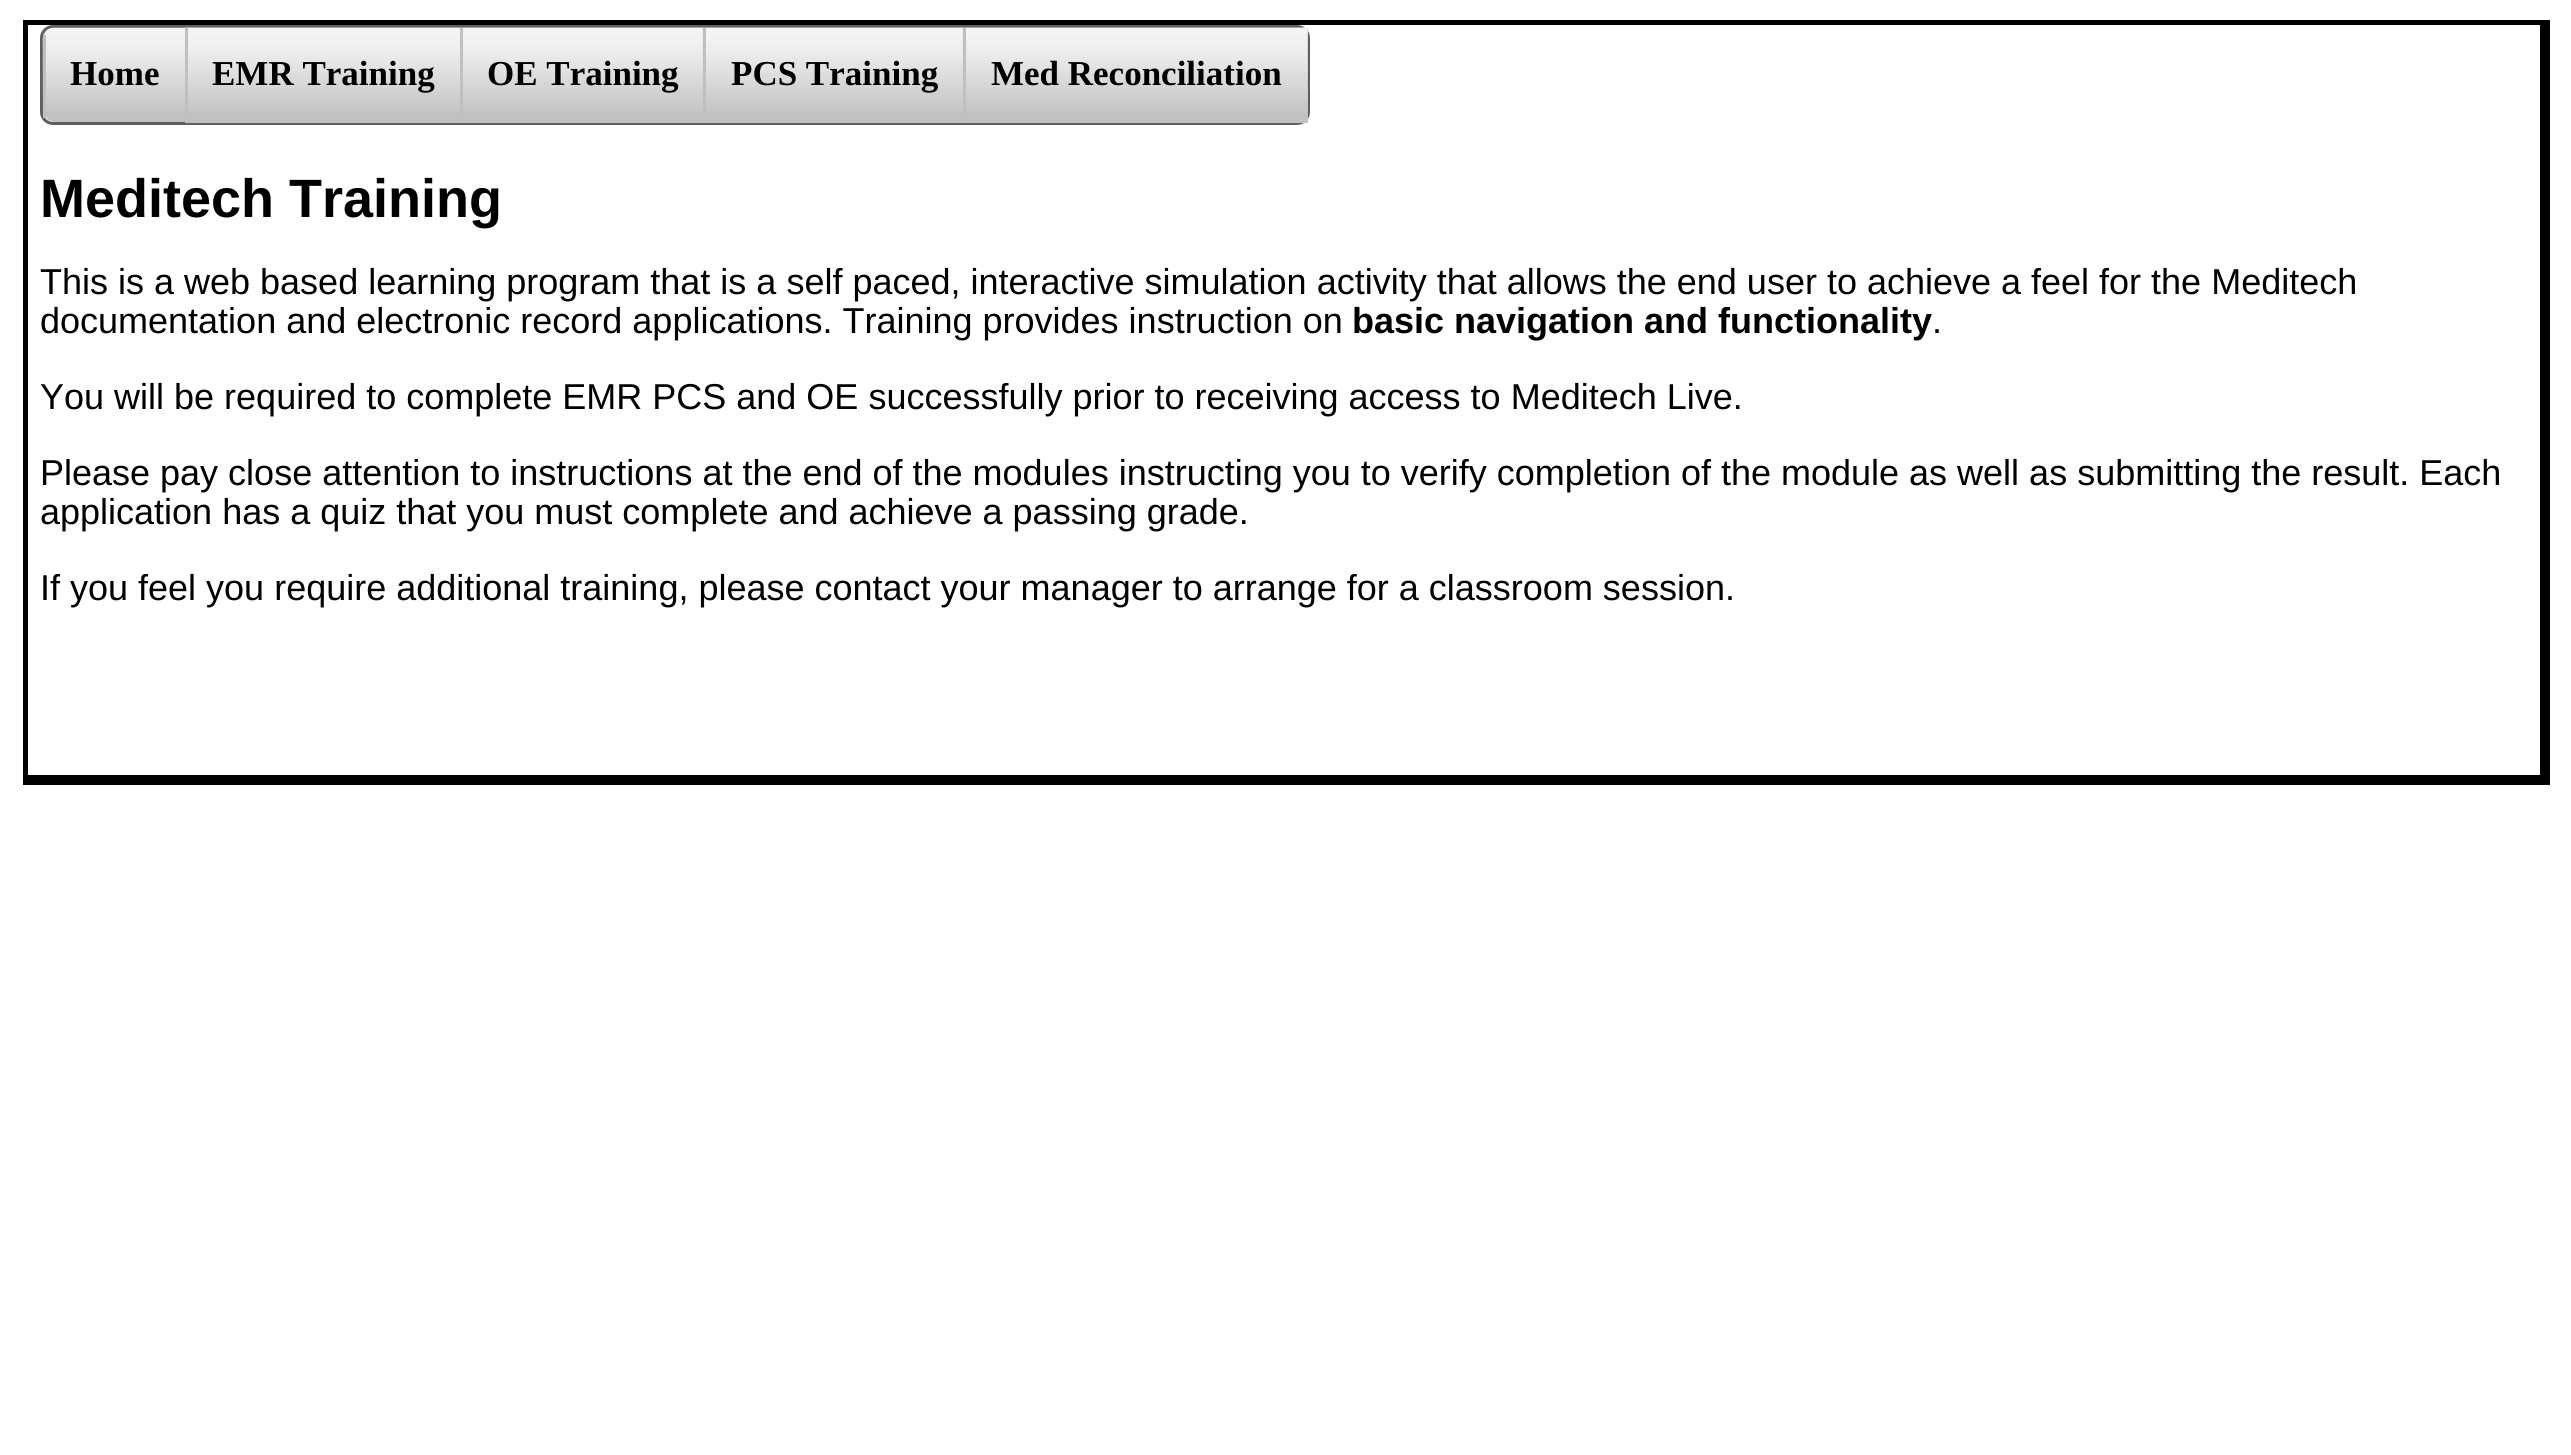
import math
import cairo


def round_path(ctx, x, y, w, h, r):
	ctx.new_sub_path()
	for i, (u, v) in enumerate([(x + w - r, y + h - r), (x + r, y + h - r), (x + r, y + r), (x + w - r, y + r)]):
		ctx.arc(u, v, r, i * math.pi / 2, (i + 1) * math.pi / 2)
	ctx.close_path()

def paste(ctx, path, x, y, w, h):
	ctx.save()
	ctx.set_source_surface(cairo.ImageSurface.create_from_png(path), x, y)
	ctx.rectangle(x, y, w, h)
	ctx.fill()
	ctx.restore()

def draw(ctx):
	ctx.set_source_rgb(1, 1, 1)
	ctx.paint()
	ctx.set_source_rgb(0, 0, 0)
	ctx.rectangle(23, 20, 2517, 5)
	ctx.rectangle(2540, 20, 10, 755)
	ctx.rectangle(28, 775, 2522, 10)
	ctx.rectangle(23, 20, 5, 765)
	ctx.fill()
	ctx.set_source_rgb(0.871, 0.871, 0.871)
	round_path(ctx, 41.5, 26.5, 1267, 97, 11.5)
	ctx.fill_preserve()
	ctx.set_source_rgb(0.373, 0.373, 0.373)
	ctx.set_line_width(3)
	ctx.stroke()
	ctx.set_source_rgb(0.757, 0.757, 0.757)
	ctx.new_path()
	ctx.move_to(55, 28)
	ctx.line_to(185, 28)
	ctx.line_to(185, 122)
	ctx.line_to(55, 122)
	ctx.curve_to(49, 122, 45, 117, 45, 110)
	ctx.line_to(45, 40)
	ctx.curve_to(45, 33, 49, 28, 55, 28)
	ctx.close_path()
	ctx.fill()
	paste(ctx, 'media/1.png', 42, 27, 143, 85)
	ctx.set_source_rgb(0.753, 0.753, 0.753)
	ctx.rectangle(43, 35, 3, 83)
	ctx.fill()
	ctx.select_font_face('Liberation Serif', cairo.FONT_SLANT_NORMAL, cairo.FONT_WEIGHT_BOLD)
	ctx.set_font_size(35)
	ctx.set_source_rgb(0, 0, 0)
	ctx.move_to(70, 85)
	ctx.show_text('Home')
	ctx.set_source_rgb(0.757, 0.757, 0.757)
	ctx.rectangle(188, 28, 272, 95)
	ctx.fill()
	paste(ctx, 'media/2.png', 185, 27, 275, 85)
	ctx.set_source_rgb(0.753, 0.753, 0.753)
	ctx.rectangle(185, 28, 3, 95)
	ctx.fill()
	ctx.set_source_rgb(0, 0, 0)
	ctx.move_to(212, 85)
	ctx.show_text('EMR Training')
	ctx.set_source_rgb(0.757, 0.757, 0.757)
	ctx.rectangle(463, 28, 240, 95)
	ctx.fill()
	paste(ctx, 'media/3.png', 460, 27, 243, 85)
	ctx.set_source_rgb(0.753, 0.753, 0.753)
	ctx.rectangle(460, 28, 3, 95)
	ctx.fill()
	ctx.set_source_rgb(0, 0, 0)
	ctx.move_to(487, 85)
	ctx.show_text('OE Training')
	ctx.set_source_rgb(0.757, 0.757, 0.757)
	ctx.rectangle(706, 28, 257, 95)
	ctx.fill()
	paste(ctx, 'media/4.png', 702, 27, 261, 85)
	ctx.set_source_rgb(0.753, 0.753, 0.753)
	ctx.rectangle(703, 28, 3, 95)
	ctx.fill()
	ctx.set_source_rgb(0, 0, 0)
	ctx.move_to(731, 85)
	ctx.show_text('PCS Training')
	ctx.set_source_rgb(0.757, 0.757, 0.757)
	ctx.rectangle(966, 28, 342, 95)
	ctx.fill()
	paste(ctx, 'media/5.png', 962, 27, 346, 85)
	ctx.set_source_rgb(0.753, 0.753, 0.753)
	ctx.rectangle(963, 28, 3, 95)
	ctx.fill()
	ctx.set_source_rgb(0, 0, 0)
	ctx.move_to(991, 85)
	ctx.show_text('Med Reconciliation')
	ctx.select_font_face('Liberation Sans', cairo.FONT_SLANT_NORMAL, cairo.FONT_WEIGHT_BOLD)
	ctx.set_font_size(54)
	ctx.move_to(40, 217)
	ctx.show_text('Meditech Training')
	ctx.select_font_face('Liberation Sans')
	ctx.set_font_size(36)
	ctx.move_to(40, 294)
	ctx.show_text('This is a web based learning program that is a self paced, interactive simulation activity that allows the end user to achieve a feel for the Meditech')
	ctx.move_to(40, 333)
	ctx.show_text('documentation and electronic record applications. Training provides instruction on')
	ctx.select_font_face('Liberation Sans', cairo.FONT_SLANT_NORMAL, cairo.FONT_WEIGHT_BOLD)
	ctx.move_to(1352, 333)
	ctx.show_text('basic navigation and functionality')
	ctx.select_font_face('Liberation Sans')
	for x, y, s in [
		(1932, 333, '.'),
		(40, 409, 'You will be required to complete EMR PCS and OE successfully prior to receiving access to Meditech Live.'),
		(40, 485, 'Please pay close attention to instructions at the end of the modules instructing you to verify completion of the module as well as submitting the result. Each'),
		(40, 524, 'application has a quiz that you must complete and achieve a passing grade.'),
		(40, 600, 'If you feel you require additional training, please contact your manager to arrange for a classroom session.'),
	]:
		ctx.move_to(x, y)
		ctx.show_text(s)


surface = cairo.ImageSurface(cairo.FORMAT_RGB24, 2571, 1455)
ctx = cairo.Context(surface)
options = cairo.FontOptions()
options.set_hint_metrics(cairo.HINT_METRICS_OFF)
options.set_hint_style(cairo.HINT_STYLE_NONE)
ctx.set_font_options(options)
ctx.set_miter_limit(4)
draw(ctx)
surface.write_to_png('image.png')
